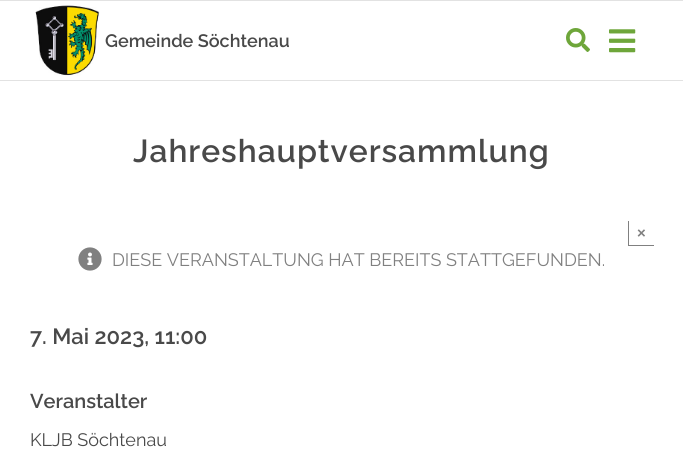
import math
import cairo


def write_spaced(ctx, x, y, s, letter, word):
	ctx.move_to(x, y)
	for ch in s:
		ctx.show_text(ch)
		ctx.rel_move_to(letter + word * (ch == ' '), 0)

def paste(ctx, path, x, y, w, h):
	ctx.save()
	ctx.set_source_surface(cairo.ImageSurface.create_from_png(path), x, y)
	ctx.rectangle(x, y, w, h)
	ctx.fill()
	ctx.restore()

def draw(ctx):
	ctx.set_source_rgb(1, 1, 1)
	ctx.paint()
	ctx.set_source_rgb(0.886, 0.886, 0.886)
	ctx.rectangle(0, 0, 683, 1)
	ctx.fill()
	ctx.rectangle(0, 80, 683, 1)
	ctx.fill()
	paste(ctx, 'media/1.png', 35, 5, 65, 71)
	ctx.select_font_face('Raleway SemiBold')
	ctx.set_font_size(18)
	ctx.set_source_rgb(0.286, 0.286, 0.286)
	ctx.move_to(105, 47)
	ctx.show_text('Gemeinde Söchtenau')
	paste(ctx, 'media/2.png', 566, 28, 24, 24)
	paste(ctx, 'media/3.png', 609, 29, 27, 24)
	ctx.set_font_size(31.75)
	write_spaced(ctx, 133, 162, 'Jahreshauptversammlung', 1, 0)
	ctx.set_source_rgb(0.502, 0.502, 0.502)
	ctx.rectangle(628, 245, 26, 1)
	ctx.fill()
	ctx.rectangle(628, 221, 1, 25)
	ctx.fill()
	ctx.select_font_face('Liberation Sans', cairo.FONT_SLANT_NORMAL, cairo.FONT_WEIGHT_BOLD)
	ctx.set_font_size(15)
	ctx.move_to(637, 238)
	ctx.show_text('×')
	paste(ctx, 'media/4.png', 78, 247, 24, 24)
	ctx.select_font_face('Raleway')
	ctx.set_font_size(18)
	ctx.move_to(112, 266)
	ctx.show_text('DIESE VERANSTALTUNG HAT BEREITS STATTGEFUNDEN.')
	ctx.select_font_face('Raleway SemiBold')
	ctx.set_font_size(22)
	ctx.set_source_rgb(0.286, 0.286, 0.286)
	ctx.move_to(30, 344)
	ctx.show_text('7. Mai 2023, 11:00')
	ctx.set_font_size(20)
	ctx.move_to(30, 408)
	ctx.show_text('Veranstalter')
	ctx.select_font_face('Raleway')
	ctx.set_font_size(18)
	ctx.move_to(30, 446)
	ctx.show_text('KLJB Söchtenau')


surface = cairo.ImageSurface(cairo.FORMAT_RGB24, 683, 460)
ctx = cairo.Context(surface)
options = cairo.FontOptions()
options.set_hint_metrics(cairo.HINT_METRICS_OFF)
options.set_hint_style(cairo.HINT_STYLE_NONE)
ctx.set_font_options(options)
ctx.set_miter_limit(4)
draw(ctx)
surface.write_to_png('image.png')
